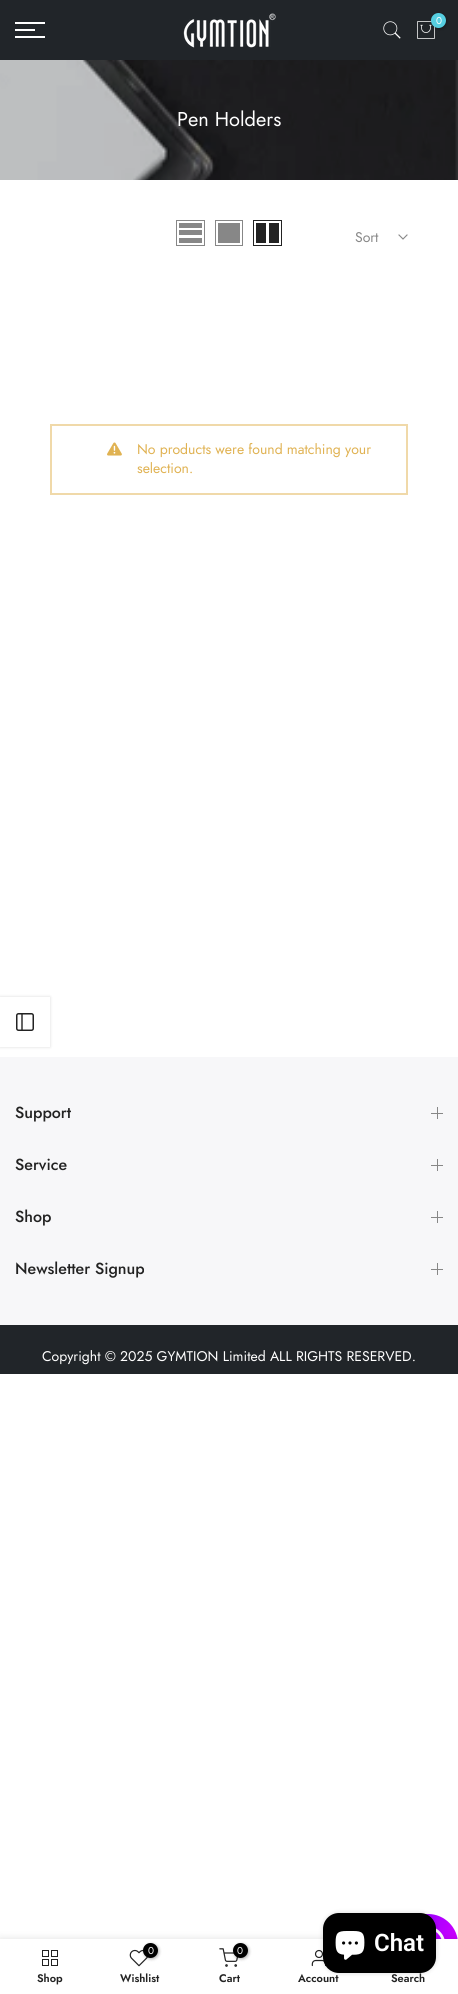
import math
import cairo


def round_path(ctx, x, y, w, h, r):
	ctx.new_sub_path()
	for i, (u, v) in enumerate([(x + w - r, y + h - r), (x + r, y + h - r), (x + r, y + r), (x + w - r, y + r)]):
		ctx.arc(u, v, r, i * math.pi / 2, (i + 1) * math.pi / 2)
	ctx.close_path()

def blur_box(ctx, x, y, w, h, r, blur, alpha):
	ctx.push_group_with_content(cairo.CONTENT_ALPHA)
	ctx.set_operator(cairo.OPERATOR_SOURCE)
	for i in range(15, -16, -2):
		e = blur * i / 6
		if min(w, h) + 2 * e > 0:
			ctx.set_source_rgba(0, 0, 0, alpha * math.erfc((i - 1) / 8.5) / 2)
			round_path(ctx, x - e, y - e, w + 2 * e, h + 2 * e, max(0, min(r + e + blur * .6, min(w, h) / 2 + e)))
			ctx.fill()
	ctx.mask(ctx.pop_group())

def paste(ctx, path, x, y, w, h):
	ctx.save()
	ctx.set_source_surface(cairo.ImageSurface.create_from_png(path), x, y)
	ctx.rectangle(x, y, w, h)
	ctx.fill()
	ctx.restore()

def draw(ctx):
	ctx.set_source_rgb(1, 1, 1)
	ctx.paint()
	ctx.set_source_rgb(0.129, 0.145, 0.161)
	ctx.rectangle(0, 0, 458, 60)
	ctx.fill()
	paste(ctx, 'media/1.png', 183, 13, 93, 35)
	paste(ctx, 'media/2.png', 383, 21, 18, 18)
	paste(ctx, 'media/3.png', 417, 21, 18, 18)
	ctx.set_source_rgb(0, 0, 0)
	blur_box(ctx, 432, 14, 15, 15, 7.5, 1.5, 0.3)
	ctx.set_source_rgb(0.337, 0.812, 0.882)
	ctx.arc(438.5, 20.5, 7.5, 0, 2 * math.pi)
	ctx.fill()
	ctx.select_font_face('Jost')
	ctx.set_font_size(10)
	ctx.set_source_rgb(1, 1, 1)
	ctx.move_to(436, 24)
	ctx.show_text('0')
	ctx.rectangle(15, 22, 30, 2)
	ctx.rectangle(15, 29, 20, 2)
	ctx.rectangle(15, 36, 30, 2)
	ctx.fill()
	paste(ctx, 'media/4.png', 0, 60, 458, 120)
	ctx.set_font_size(20)
	ctx.move_to(177, 126)
	ctx.show_text('Pen Holders')
	ctx.rectangle(176.5, 220.5, 28, 25)
	ctx.set_source_rgb(0.529, 0.529, 0.529)
	ctx.set_line_width(1)
	ctx.stroke()
	ctx.rectangle(179, 238, 23, 5)
	ctx.rectangle(179, 230, 23, 5)
	ctx.rectangle(179, 223, 23, 5)
	ctx.fill()
	ctx.rectangle(215.5, 220.5, 27, 25)
	ctx.stroke()
	ctx.rectangle(218, 223, 22, 20)
	ctx.fill()
	ctx.rectangle(253.5, 220.5, 28, 25)
	ctx.set_source_rgb(0.133, 0.133, 0.133)
	ctx.stroke()
	ctx.rectangle(269, 223, 10, 20)
	ctx.fill()
	ctx.rectangle(256, 223, 10, 20)
	ctx.fill()
	ctx.set_font_size(14)
	ctx.set_source_rgb(0.529, 0.529, 0.529)
	ctx.move_to(355, 242)
	ctx.show_text('Sort')
	ctx.new_path()
	ctx.move_to(407, 235)
	ctx.line_to(403, 239)
	ctx.line_to(399, 235)
	ctx.set_line_width(1.1)
	ctx.set_line_cap(cairo.LINE_CAP_SQUARE)
	ctx.stroke()
	ctx.rectangle(51, 425, 356, 69)
	ctx.set_source_rgb(0.941, 0.851, 0.663)
	ctx.set_line_width(2)
	ctx.set_line_cap(cairo.LINE_CAP_BUTT)
	ctx.stroke()
	paste(ctx, 'media/5.png', 107, 442, 15, 14)
	ctx.set_source_rgb(0.878, 0.698, 0.322)
	ctx.move_to(137, 454)
	ctx.show_text('No products were found matching your')
	ctx.move_to(137, 473)
	ctx.show_text('selection.')
	ctx.save()
	ctx.set_fill_rule(cairo.FILL_RULE_EVEN_ODD)
	ctx.new_path()
	ctx.move_to(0, 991)
	ctx.line_to(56, 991)
	ctx.line_to(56, 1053)
	ctx.line_to(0, 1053)
	ctx.close_path()
	ctx.move_to(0, 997)
	ctx.line_to(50, 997)
	ctx.line_to(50, 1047)
	ctx.line_to(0, 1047)
	ctx.close_path()
	ctx.clip()
	ctx.set_source_rgb(0, 0, 0)
	blur_box(ctx, 0, 997, 50, 50, 0, 1.5, 0.15)
	ctx.restore()
	round_path(ctx, 16.75, 1013.75, 16.5, 16.5, 1.75)
	ctx.set_source_rgb(0.133, 0.133, 0.133)
	ctx.set_line_width(1.5)
	ctx.stroke()
	ctx.new_path()
	ctx.move_to(22, 1014)
	ctx.line_to(22, 1030)
	ctx.set_line_width(1.4)
	ctx.set_line_cap(cairo.LINE_CAP_ROUND)
	ctx.set_line_join(cairo.LINE_JOIN_ROUND)
	ctx.stroke()
	ctx.set_source_rgb(0.965, 0.965, 0.973)
	ctx.rectangle(0, 1057, 458, 268)
	ctx.fill()
	ctx.select_font_face('Jost Medium')
	ctx.set_font_size(16)
	ctx.set_source_rgb(0.133, 0.133, 0.133)
	ctx.move_to(15, 1118)
	ctx.show_text('Support')
	ctx.set_source_rgb(0.529, 0.529, 0.529)
	ctx.rectangle(437, 1107, 1, 12)
	ctx.fill()
	ctx.rectangle(431, 1113, 12, 1)
	ctx.fill()
	ctx.set_source_rgb(0.133, 0.133, 0.133)
	ctx.move_to(15, 1170)
	ctx.show_text('Service')
	ctx.set_source_rgb(0.529, 0.529, 0.529)
	ctx.rectangle(437, 1159, 1, 12)
	ctx.fill()
	ctx.rectangle(431, 1165, 12, 1)
	ctx.fill()
	ctx.set_source_rgb(0.133, 0.133, 0.133)
	ctx.move_to(15, 1222)
	ctx.show_text('Shop')
	ctx.set_source_rgb(0.529, 0.529, 0.529)
	ctx.rectangle(437, 1211, 1, 12)
	ctx.fill()
	ctx.rectangle(431, 1217, 12, 1)
	ctx.fill()
	ctx.set_source_rgb(0.133, 0.133, 0.133)
	ctx.move_to(15, 1274)
	ctx.show_text('Newsletter Signup')
	ctx.set_source_rgb(0.529, 0.529, 0.529)
	ctx.rectangle(437, 1263, 1, 12)
	ctx.rectangle(431, 1269, 12, 1)
	ctx.fill()
	ctx.set_source_rgb(0.129, 0.145, 0.161)
	ctx.rectangle(0, 1325, 458, 49)
	ctx.fill()
	ctx.select_font_face('Jost')
	ctx.set_font_size(14)
	ctx.set_source_rgb(1, 1, 1)
	ctx.move_to(42, 1361)
	ctx.show_text('Copyright © 2025 GYMTION Limited ALL RIGHTS RESERVED.')
	gradient = cairo.LinearGradient(392, 1927, 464, 1961)
	gradient.add_color_stop_rgba(0, 0.498, 0, 1, 1)
	gradient.add_color_stop_rgba(1, 0.882, 0, 1, 1)
	ctx.set_source(gradient)
	ctx.new_path()
	ctx.arc(428, 1944, 30, 0, 2 * math.pi)
	ctx.fill()
	paste(ctx, 'media/6.png', 435, 1928, 10, 11)
	ctx.set_source_rgb(0, 0, 0)
	blur_box(ctx, 0, 1939, 458, 55, 0, 4.5, 0.12)
	ctx.set_source_rgb(1, 1, 1)
	ctx.rectangle(0, 1939, 458, 55)
	ctx.fill()
	paste(ctx, 'media/11.png', 311, 1949, 15, 18)
	ctx.set_source_rgb(0, 0, 0)
	blur_box(ctx, 323, 1913, 113, 60, 16, 2.5, 0.15)
	ctx.set_source_rgb(0, 0, 0)
	round_path(ctx, 323, 1913, 113, 60, 16)
	ctx.fill()
	paste(ctx, 'media/7.png', 335, 1931, 30, 29)
	ctx.select_font_face('Roboto SemiBold')
	ctx.set_font_size(24)
	ctx.set_source_rgb(1, 1, 1)
	ctx.move_to(374, 1951)
	ctx.show_text('Chat')
	paste(ctx, 'media/8.png', 42, 1950, 16, 16)
	ctx.select_font_face('Jost SemiBold')
	ctx.set_font_size(11)
	ctx.set_source_rgb(0.133, 0.133, 0.133)
	ctx.move_to(37, 1982)
	ctx.show_text('Shop')
	paste(ctx, 'media/9.png', 129, 1949, 19, 18)
	ctx.set_source_rgb(0, 0, 0)
	blur_box(ctx, 144, 1944, 15, 15, 7.5, 1.5, 0.3)
	ctx.set_source_rgb(0, 0, 0)
	ctx.arc(150.5, 1950.5, 7.5, 0, 2 * math.pi)
	ctx.fill()
	ctx.select_font_face('Jost')
	ctx.set_font_size(10)
	ctx.set_source_rgb(1, 1, 1)
	ctx.move_to(148, 1954)
	ctx.show_text('0')
	ctx.select_font_face('Jost SemiBold')
	ctx.set_font_size(11)
	ctx.set_source_rgb(0.133, 0.133, 0.133)
	ctx.move_to(120, 1982)
	ctx.show_text('Wishlist')
	paste(ctx, 'media/10.png', 219, 1948, 19, 19)
	ctx.set_source_rgb(0, 0, 0)
	blur_box(ctx, 234, 1944, 15, 15, 7.5, 1.5, 0.3)
	ctx.set_source_rgb(0, 0, 0)
	ctx.arc(240.5, 1950.5, 7.5, 0, 2 * math.pi)
	ctx.fill()
	ctx.select_font_face('Jost')
	ctx.set_font_size(10)
	ctx.set_source_rgb(1, 1, 1)
	ctx.move_to(237, 1954)
	ctx.show_text('0')
	ctx.select_font_face('Jost SemiBold')
	ctx.set_font_size(11)
	ctx.set_source_rgb(0.133, 0.133, 0.133)
	for x, y, s in [
		(219, 1982, 'Cart'),
		(298, 1982, 'Account'),
		(391, 1982, 'Search'),
	]:
		ctx.move_to(x, y)
		ctx.show_text(s)


surface = cairo.ImageSurface(cairo.FORMAT_RGB24, 458, 1994)
ctx = cairo.Context(surface)
options = cairo.FontOptions()
options.set_hint_metrics(cairo.HINT_METRICS_OFF)
options.set_hint_style(cairo.HINT_STYLE_NONE)
ctx.set_font_options(options)
ctx.set_miter_limit(4)
draw(ctx)
surface.write_to_png('image.png')
